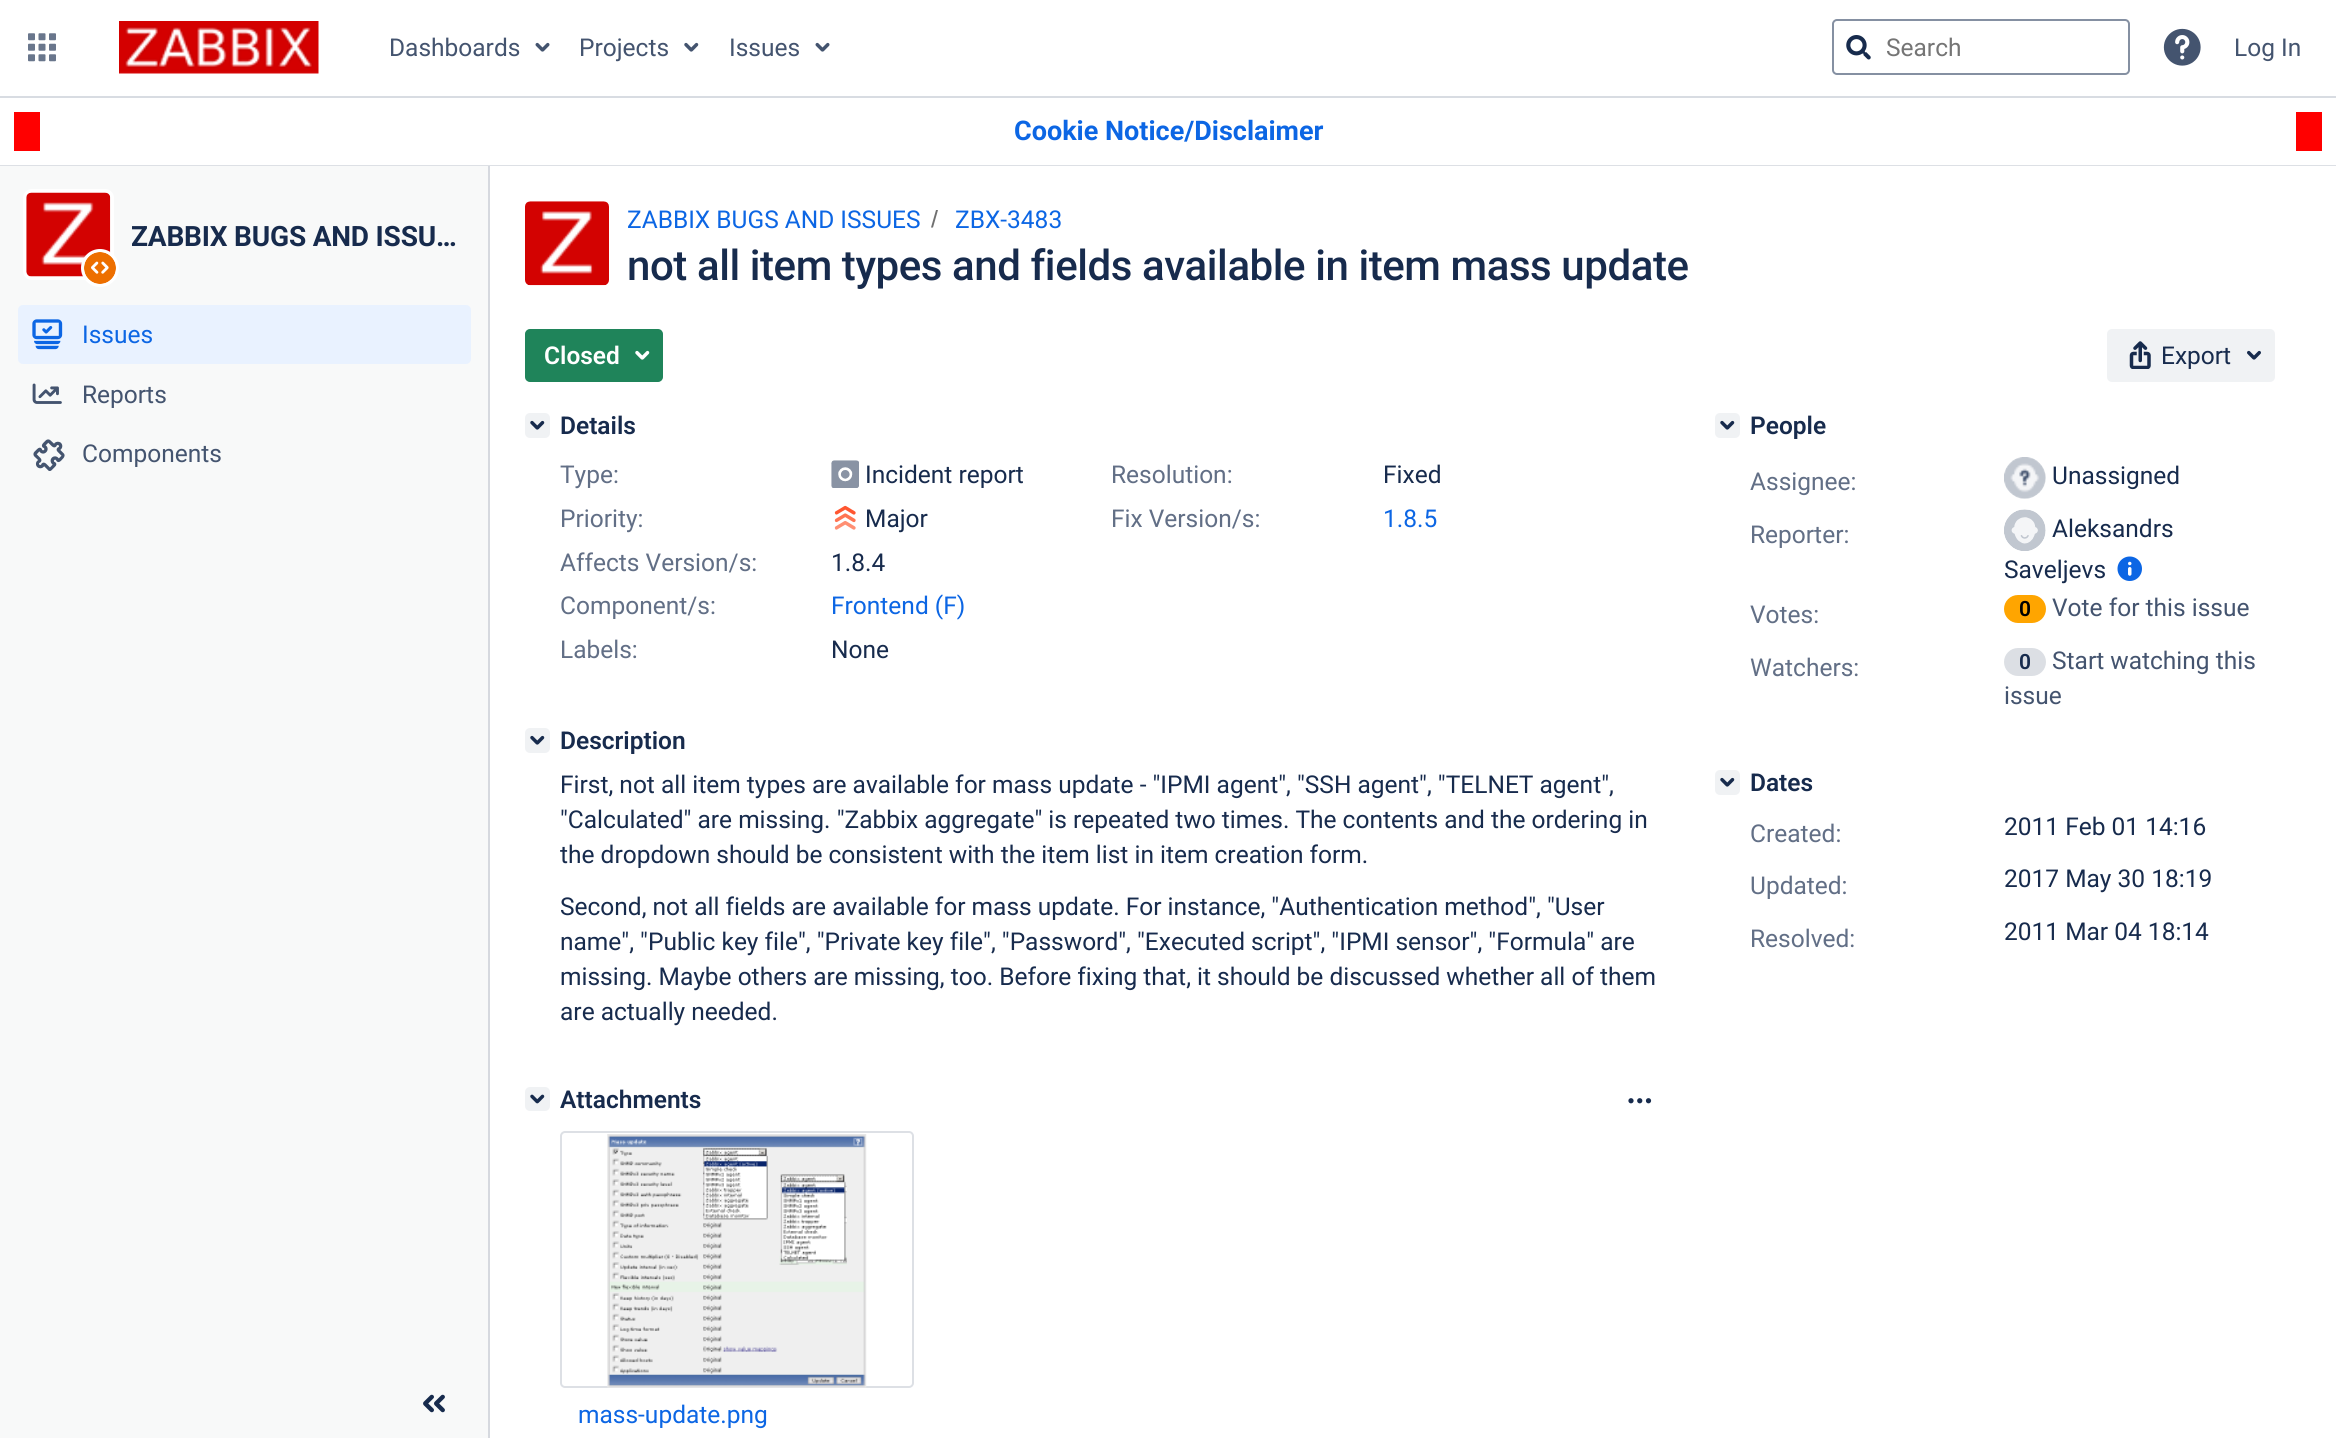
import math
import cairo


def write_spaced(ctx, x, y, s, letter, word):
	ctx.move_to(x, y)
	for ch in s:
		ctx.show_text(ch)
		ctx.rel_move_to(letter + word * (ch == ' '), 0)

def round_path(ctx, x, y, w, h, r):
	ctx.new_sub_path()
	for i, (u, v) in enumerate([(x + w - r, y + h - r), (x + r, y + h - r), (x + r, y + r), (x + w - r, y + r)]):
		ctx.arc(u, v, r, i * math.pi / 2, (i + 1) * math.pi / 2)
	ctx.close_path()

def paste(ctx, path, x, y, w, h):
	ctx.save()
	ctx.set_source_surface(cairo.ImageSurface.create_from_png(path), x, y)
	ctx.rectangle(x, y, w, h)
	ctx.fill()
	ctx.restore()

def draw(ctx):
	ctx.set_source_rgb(1, 1, 1)
	ctx.paint()
	ctx.set_source_rgb(0.847, 0.863, 0.886)
	ctx.rectangle(0, 96, 2336, 2)
	ctx.fill()
	paste(ctx, 'media/1.png', 28, 33, 28, 29)
	paste(ctx, 'media/2.png', 119, 21, 200, 53)
	ctx.select_font_face('Roboto')
	ctx.set_font_size(24.5)
	ctx.set_source_rgb(0.267, 0.329, 0.435)
	ctx.move_to(389, 56)
	ctx.show_text('Dashboards')
	paste(ctx, 'media/3.png', 535, 42, 15, 10)
	ctx.move_to(579, 56)
	ctx.show_text('Projects')
	paste(ctx, 'media/4.png', 684, 42, 15, 10)
	ctx.move_to(729, 56)
	ctx.show_text('Issues')
	paste(ctx, 'media/3.png', 815, 42, 15, 10)
	round_path(ctx, 1833, 20, 296, 54, 4)
	ctx.set_source_rgb(0.522, 0.565, 0.635)
	ctx.stroke()
	paste(ctx, 'media/5.png', 1846, 35, 25, 25)
	ctx.set_source_rgb(0.459, 0.459, 0.459)
	ctx.move_to(1886, 56)
	ctx.show_text('Search')
	paste(ctx, 'media/6.png', 2163, 28, 38, 38)
	ctx.set_source_rgb(0.267, 0.329, 0.435)
	ctx.move_to(2234, 56)
	ctx.show_text('Log In')
	ctx.set_source_rgb(0.867, 0.878, 0.898)
	ctx.rectangle(0, 165, 2336, 1)
	ctx.fill()
	ctx.set_source_rgb(1, 0, 0)
	ctx.rectangle(2296, 112, 26, 39)
	ctx.rectangle(14, 112, 26, 39)
	ctx.fill()
	ctx.select_font_face('Roboto', cairo.FONT_SLANT_NORMAL, cairo.FONT_WEIGHT_BOLD)
	ctx.set_font_size(27)
	ctx.set_source_rgb(0.047, 0.4, 0.894)
	ctx.move_to(1014, 140)
	ctx.show_text('Cookie Notice/Disclaimer')
	ctx.set_source_rgb(0.969, 0.973, 0.976)
	ctx.rectangle(0, 166, 488, 1272)
	ctx.fill()
	ctx.set_source_rgb(0.839, 0.851, 0.875)
	ctx.rectangle(488, 166, 2, 1272)
	ctx.fill()
	round_path(ctx, 25, 191, 87, 87, 7)
	ctx.set_source_rgb(1, 1, 1)
	ctx.set_line_width(4)
	ctx.stroke()
	paste(ctx, 'media/7.png', 26, 192, 85, 85)
	ctx.arc(100, 268, 19, 0, 2 * math.pi)
	ctx.fill()
	paste(ctx, 'media/8.png', 84, 252, 32, 32)
	ctx.set_font_size(28)
	ctx.set_source_rgb(0.09, 0.169, 0.302)
	write_spaced(ctx, 131, 246, 'ZABBIX BUGS AND ISSU…', -0.2, 0)
	ctx.set_source_rgb(0.914, 0.949, 1)
	round_path(ctx, 18, 305, 453, 59, 5)
	ctx.fill()
	paste(ctx, 'media/9.png', 32, 319, 31, 31)
	ctx.select_font_face('Roboto')
	ctx.set_font_size(24.5)
	ctx.set_source_rgb(0.047, 0.4, 0.894)
	ctx.move_to(82, 343)
	ctx.show_text('Issues')
	paste(ctx, 'media/10.png', 32, 383, 30, 21)
	ctx.set_source_rgb(0.267, 0.329, 0.435)
	ctx.move_to(82, 403)
	ctx.show_text('Reports')
	paste(ctx, 'media/11.png', 33, 439, 32, 32)
	ctx.move_to(82, 462)
	ctx.show_text('Components')
	paste(ctx, 'media/12.png', 423, 1394, 22, 19)
	paste(ctx, 'media/13.png', 525, 201, 84, 85)
	ctx.set_source_rgb(0.047, 0.4, 0.894)
	ctx.move_to(627, 228)
	ctx.show_text('ZABBIX BUGS AND ISSUES')
	ctx.set_source_rgb(0.439, 0.439, 0.439)
	ctx.new_path()
	ctx.move_to(933, 227.5)
	ctx.line_to(938, 210)
	ctx.line_to(936, 210)
	ctx.line_to(931, 227.5)
	ctx.close_path()
	ctx.fill()
	ctx.set_source_rgb(0.047, 0.4, 0.894)
	ctx.move_to(955, 228)
	ctx.show_text('ZBX-3483')
	ctx.select_font_face('Roboto Medium')
	ctx.set_font_size(42)
	ctx.set_source_rgb(0.09, 0.169, 0.302)
	write_spaced(ctx, 627, 280, 'not all item types and fields available in item mass update', -0.42, 0)
	ctx.set_source_rgb(0.122, 0.518, 0.353)
	round_path(ctx, 526, 330, 136, 51, 4)
	ctx.fill_preserve()
	ctx.set_line_width(2)
	ctx.stroke()
	ctx.select_font_face('Roboto SemiBold')
	ctx.set_font_size(24.5)
	ctx.set_source_rgb(1, 1, 1)
	ctx.move_to(544, 364)
	ctx.show_text('Closed')
	paste(ctx, 'media/14.png', 635, 350, 15, 10)
	ctx.set_source_rgb(0.941, 0.949, 0.957)
	round_path(ctx, 2107, 329, 168, 53, 5)
	ctx.fill()
	paste(ctx, 'media/15.png', 2129, 341, 22, 28)
	ctx.select_font_face('Roboto')
	ctx.set_source_rgb(0.09, 0.169, 0.302)
	ctx.move_to(2161, 364)
	ctx.show_text('Export')
	paste(ctx, 'media/16.png', 2247, 350, 14, 10)
	ctx.set_source_rgb(0.941, 0.949, 0.957)
	round_path(ctx, 525, 413, 25, 25, 5)
	ctx.fill()
	paste(ctx, 'media/17.png', 530, 420, 15, 10)
	ctx.select_font_face('Roboto SemiBold')
	ctx.set_source_rgb(0.09, 0.169, 0.302)
	ctx.move_to(560, 434)
	ctx.show_text('Details')
	ctx.select_font_face('Roboto')
	ctx.set_source_rgb(0.384, 0.435, 0.525)
	ctx.move_to(560, 483)
	ctx.show_text('Type:')
	paste(ctx, 'media/18.png', 831, 460, 28, 28)
	ctx.set_source_rgb(0.09, 0.169, 0.302)
	ctx.move_to(865, 483)
	ctx.show_text('Incident report')
	ctx.set_source_rgb(0.384, 0.435, 0.525)
	ctx.move_to(1111, 483)
	ctx.show_text('Resolution:')
	ctx.set_source_rgb(0.09, 0.169, 0.302)
	ctx.move_to(1383, 483)
	ctx.show_text('Fixed')
	ctx.set_source_rgb(0.384, 0.435, 0.525)
	ctx.move_to(560, 527)
	ctx.show_text('Priority:')
	paste(ctx, 'media/19.png', 834, 505, 22, 25)
	ctx.set_source_rgb(0.09, 0.169, 0.302)
	ctx.move_to(865, 527)
	ctx.show_text('Major')
	ctx.set_source_rgb(0.384, 0.435, 0.525)
	ctx.move_to(1111, 527)
	ctx.show_text('Fix Version/s:')
	ctx.set_source_rgb(0.047, 0.4, 0.894)
	ctx.move_to(1383, 527)
	ctx.show_text('1.8.5')
	ctx.set_source_rgb(0.384, 0.435, 0.525)
	ctx.move_to(560, 571)
	ctx.show_text('Affects Version/s:')
	ctx.set_source_rgb(0.09, 0.169, 0.302)
	ctx.move_to(831, 571)
	ctx.show_text('1.8.4')
	ctx.set_source_rgb(0.384, 0.435, 0.525)
	ctx.move_to(560, 614)
	ctx.show_text('Component/s:')
	ctx.set_source_rgb(0.047, 0.4, 0.894)
	ctx.move_to(831, 614)
	ctx.show_text('Frontend (F)')
	ctx.set_source_rgb(0.384, 0.435, 0.525)
	ctx.move_to(560, 658)
	ctx.show_text('Labels:')
	ctx.set_source_rgb(0.09, 0.169, 0.302)
	ctx.move_to(831, 658)
	ctx.show_text('None')
	ctx.set_source_rgb(0.941, 0.949, 0.957)
	round_path(ctx, 525, 728, 25, 25, 5)
	ctx.fill()
	paste(ctx, 'media/17.png', 530, 735, 15, 10)
	ctx.select_font_face('Roboto SemiBold')
	ctx.set_source_rgb(0.09, 0.169, 0.302)
	ctx.move_to(560, 749)
	ctx.show_text('Description')
	ctx.select_font_face('Roboto')
	for x, y, s in [
		(560, 793, 'First, not all item types are available for mass update - "IPMI agent", "SSH agent", "TELNET agent",'),
		(560, 828, '"Calculated" are missing. "Zabbix aggregate" is repeated two times. The contents and the ordering in'),
		(560, 863, 'the dropdown should be consistent with the item list in item creation form.'),
		(560, 915, 'Second, not all fields are available for mass update. For instance, "Authentication method", "User'),
		(560, 950, 'name", "Public key file", "Private key file", "Password", "Executed script", "IPMI sensor", "Formula" are'),
		(560, 985, 'missing. Maybe others are missing, too. Before fixing that, it should be discussed whether all of them'),
		(560, 1020, 'are actually needed.'),
	]:
		ctx.move_to(x, y)
		ctx.show_text(s)
	ctx.set_source_rgb(0.941, 0.949, 0.957)
	round_path(ctx, 525, 1087, 25, 24, 5)
	ctx.fill()
	paste(ctx, 'media/20.png', 530, 1094, 15, 10)
	ctx.select_font_face('Roboto SemiBold')
	ctx.set_source_rgb(0.09, 0.169, 0.302)
	ctx.move_to(560, 1108)
	ctx.show_text('Attachments')
	paste(ctx, 'media/21.png', 1628, 1098, 24, 6)
	round_path(ctx, 561, 1132, 352, 255, 4)
	ctx.set_source_rgb(0.867, 0.878, 0.898)
	ctx.stroke()
	paste(ctx, 'media/22.png', 607, 1134, 260, 254)
	ctx.select_font_face('Roboto')
	ctx.set_source_rgb(0.047, 0.4, 0.894)
	ctx.move_to(578, 1423)
	ctx.show_text('mass-update.png')
	ctx.set_source_rgb(0.941, 0.949, 0.957)
	round_path(ctx, 1715, 413, 25, 25, 5)
	ctx.fill()
	paste(ctx, 'media/17.png', 1720, 420, 15, 10)
	ctx.select_font_face('Roboto SemiBold')
	ctx.set_source_rgb(0.09, 0.169, 0.302)
	ctx.move_to(1750, 434)
	ctx.show_text('People')
	ctx.select_font_face('Roboto')
	ctx.set_source_rgb(0.384, 0.435, 0.525)
	ctx.move_to(1750, 490)
	ctx.show_text('Assignee:')
	paste(ctx, 'media/23.png', 2004, 457, 42, 42)
	ctx.set_source_rgb(0.09, 0.169, 0.302)
	ctx.move_to(2052, 484)
	ctx.show_text('Unassigned')
	ctx.set_source_rgb(0.384, 0.435, 0.525)
	ctx.move_to(1750, 543)
	ctx.show_text('Reporter:')
	paste(ctx, 'media/24.png', 2004, 509, 42, 42)
	ctx.set_source_rgb(0.09, 0.169, 0.302)
	ctx.move_to(2052, 537)
	ctx.show_text('Aleksandrs')
	ctx.move_to(2004, 578)
	ctx.show_text('Saveljevs')
	paste(ctx, 'media/25.png', 2117, 556, 25, 25)
	ctx.set_source_rgb(0.384, 0.435, 0.525)
	ctx.move_to(1750, 623)
	ctx.show_text('Votes:')
	ctx.set_source_rgb(1, 0.647, 0)
	round_path(ctx, 2004, 595, 42, 28, 14)
	ctx.fill()
	ctx.select_font_face('Roboto SemiBold')
	ctx.set_font_size(21)
	ctx.set_source_rgb(0, 0, 0)
	ctx.move_to(2019, 616)
	ctx.show_text('0')
	ctx.select_font_face('Roboto')
	ctx.set_font_size(24.5)
	ctx.set_source_rgb(0.267, 0.329, 0.435)
	ctx.move_to(2052, 616)
	ctx.show_text('Vote for this issue')
	ctx.set_source_rgb(0.384, 0.435, 0.525)
	ctx.move_to(1750, 676)
	ctx.show_text('Watchers:')
	ctx.set_source_rgb(0.863, 0.875, 0.894)
	round_path(ctx, 2004, 648, 42, 28, 14)
	ctx.fill()
	ctx.select_font_face('Roboto SemiBold')
	ctx.set_font_size(21)
	ctx.set_source_rgb(0.09, 0.169, 0.302)
	ctx.move_to(2019, 669)
	ctx.show_text('0')
	ctx.select_font_face('Roboto')
	ctx.set_font_size(24.5)
	ctx.set_source_rgb(0.267, 0.329, 0.435)
	ctx.move_to(2052, 669)
	ctx.show_text('Start watching this')
	ctx.move_to(2004, 704)
	ctx.show_text('issue')
	ctx.set_source_rgb(0.941, 0.949, 0.957)
	round_path(ctx, 1715, 770, 25, 25, 5)
	ctx.fill()
	paste(ctx, 'media/17.png', 1720, 777, 15, 10)
	ctx.select_font_face('Roboto SemiBold')
	ctx.set_source_rgb(0.09, 0.169, 0.302)
	ctx.move_to(1750, 791)
	ctx.show_text('Dates')
	ctx.select_font_face('Roboto')
	ctx.set_source_rgb(0.384, 0.435, 0.525)
	ctx.move_to(1750, 842)
	ctx.show_text('Created:')
	ctx.set_source_rgb(0.09, 0.169, 0.302)
	ctx.move_to(2004, 835)
	ctx.show_text('2011 Feb 01 14:16')
	ctx.set_source_rgb(0.384, 0.435, 0.525)
	ctx.move_to(1750, 894)
	ctx.show_text('Updated:')
	ctx.set_source_rgb(0.09, 0.169, 0.302)
	ctx.move_to(2004, 887)
	ctx.show_text('2017 May 30 18:19')
	ctx.set_source_rgb(0.384, 0.435, 0.525)
	ctx.move_to(1750, 947)
	ctx.show_text('Resolved:')
	ctx.set_source_rgb(0.09, 0.169, 0.302)
	ctx.move_to(2004, 940)
	ctx.show_text('2011 Mar 04 18:14')


surface = cairo.ImageSurface(cairo.FORMAT_RGB24, 2336, 1438)
ctx = cairo.Context(surface)
options = cairo.FontOptions()
options.set_hint_metrics(cairo.HINT_METRICS_OFF)
options.set_hint_style(cairo.HINT_STYLE_NONE)
ctx.set_font_options(options)
ctx.set_miter_limit(4)
draw(ctx)
surface.write_to_png('image.png')
